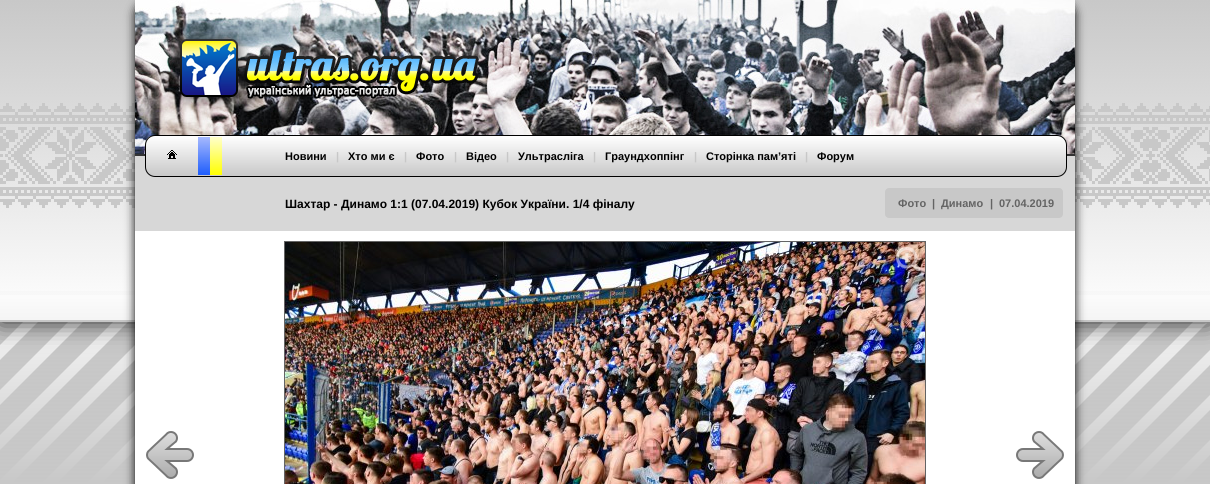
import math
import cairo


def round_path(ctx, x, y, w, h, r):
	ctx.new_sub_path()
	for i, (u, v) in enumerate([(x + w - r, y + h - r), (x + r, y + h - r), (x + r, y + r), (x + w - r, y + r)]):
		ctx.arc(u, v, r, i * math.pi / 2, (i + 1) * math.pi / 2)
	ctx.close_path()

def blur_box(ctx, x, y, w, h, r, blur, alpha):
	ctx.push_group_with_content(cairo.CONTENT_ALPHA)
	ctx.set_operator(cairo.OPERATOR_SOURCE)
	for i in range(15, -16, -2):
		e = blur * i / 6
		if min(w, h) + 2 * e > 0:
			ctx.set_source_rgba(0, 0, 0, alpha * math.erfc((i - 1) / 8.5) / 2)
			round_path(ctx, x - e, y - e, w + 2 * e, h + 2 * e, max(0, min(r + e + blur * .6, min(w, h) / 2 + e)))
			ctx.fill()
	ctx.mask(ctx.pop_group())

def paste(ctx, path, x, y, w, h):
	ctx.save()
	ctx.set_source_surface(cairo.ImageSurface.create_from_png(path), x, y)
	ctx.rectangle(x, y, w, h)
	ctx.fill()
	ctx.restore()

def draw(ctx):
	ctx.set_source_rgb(1, 1, 1)
	ctx.paint()
	paste(ctx, 'media/1.png', 0, 322, 1210, 161)
	ctx.set_source_rgb(0, 0, 0)
	blur_box(ctx, 0, 0, 1210, 322, 0, 12.5, 1)
	ctx.set_source_rgb(1, 1, 1)
	ctx.rectangle(0, 295, 1210, 25)
	ctx.fill()
	paste(ctx, 'media/2.png', 0, 0, 1210, 295)
	ctx.set_source_rgb(0.784, 0.784, 0.784)
	ctx.rectangle(0, 320, 1210, 2)
	ctx.fill()
	gradient = cairo.LinearGradient(605, 284, 605, 484)
	gradient.add_color_stop_rgba(0, 0.784, 0.784, 0.784, 0)
	gradient.add_color_stop_rgba(1, 0.784, 0.784, 0.784, 1)
	ctx.set_source(gradient)
	ctx.rectangle(0, 291, 1210, 193)
	ctx.fill()
	ctx.set_source_rgb(0, 0, 0)
	blur_box(ctx, 135, 0, 940, 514, 15, 5, 1)
	ctx.set_source_rgb(1, 1, 1)
	ctx.rectangle(135, 231, 940, 253)
	ctx.fill()
	paste(ctx, 'media/3.png', 135, 0, 940, 154)
	ctx.set_source_rgb(0.2, 0.2, 0.2)
	ctx.rectangle(135, 154, 940, 2)
	ctx.fill()
	paste(ctx, 'media/4.png', 169, 28, 310, 80)
	ctx.set_source_rgb(0.843, 0.843, 0.843)
	ctx.rectangle(135, 156, 940, 75)
	ctx.fill()
	ctx.save()
	round_path(ctx, 145, 135, 922, 42, 10)
	ctx.clip()
	gradient = cairo.LinearGradient(606, 176, 606, 136)
	gradient.add_color_stop_rgba(0, 0.784, 0.784, 0.784, 1)
	gradient.add_color_stop_rgba(1, 1, 1, 1, 1)
	ctx.set_source(gradient)
	ctx.rectangle(145, 136, 922, 40)
	ctx.fill()
	ctx.restore()
	round_path(ctx, 145.5, 135.5, 921, 41, 9.5)
	ctx.set_source_rgb(0, 0, 0)
	ctx.set_line_width(1)
	ctx.stroke()
	paste(ctx, 'media/5.png', 167, 150, 10, 9)
	gradient = cairo.LinearGradient(204, 137, 204, 175)
	gradient.add_color_stop_rgba(0, 0.651, 0.725, 0.992, 1)
	gradient.add_color_stop_rgba(1, 0.122, 0.365, 0.988, 1)
	ctx.set_source(gradient)
	ctx.rectangle(198, 137, 12, 38)
	ctx.fill()
	gradient = cairo.LinearGradient(216, 137, 216, 175)
	gradient.add_color_stop_rgba(0, 1, 1, 0.8, 1)
	gradient.add_color_stop_rgba(1, 1, 1, 0, 1)
	ctx.set_source(gradient)
	ctx.rectangle(210, 137, 12, 38)
	ctx.fill()
	ctx.select_font_face('Liberation Sans', cairo.FONT_SLANT_NORMAL, cairo.FONT_WEIGHT_BOLD)
	ctx.set_font_size(11)
	ctx.set_source_rgb(0, 0, 0)
	ctx.move_to(285, 160)
	ctx.show_text('Новини')
	ctx.set_source_rgb(0.784, 0.784, 0.784)
	ctx.move_to(336, 160)
	ctx.show_text('|')
	ctx.set_source_rgb(0, 0, 0)
	ctx.move_to(348, 160)
	ctx.show_text('Хто ми є')
	ctx.set_source_rgb(0.784, 0.784, 0.784)
	ctx.move_to(404, 160)
	ctx.show_text('|')
	ctx.set_source_rgb(0, 0, 0)
	ctx.move_to(416, 160)
	ctx.show_text('Фото')
	ctx.set_source_rgb(0.784, 0.784, 0.784)
	ctx.move_to(454, 160)
	ctx.show_text('|')
	ctx.set_source_rgb(0, 0, 0)
	ctx.move_to(466, 160)
	ctx.show_text('Відео')
	ctx.set_source_rgb(0.784, 0.784, 0.784)
	ctx.move_to(506, 160)
	ctx.show_text('|')
	ctx.set_source_rgb(0, 0, 0)
	ctx.move_to(518, 160)
	ctx.show_text('Ультрасліга')
	ctx.set_source_rgb(0.784, 0.784, 0.784)
	ctx.move_to(593, 160)
	ctx.show_text('|')
	ctx.set_source_rgb(0, 0, 0)
	ctx.move_to(605, 160)
	ctx.show_text('Граундхоппінг')
	ctx.set_source_rgb(0.784, 0.784, 0.784)
	ctx.move_to(694, 160)
	ctx.show_text('|')
	ctx.set_source_rgb(0, 0, 0)
	ctx.move_to(706, 160)
	ctx.show_text('Сторінка пам’яті')
	ctx.set_source_rgb(0.784, 0.784, 0.784)
	ctx.move_to(805, 160)
	ctx.show_text('|')
	ctx.set_source_rgb(0, 0, 0)
	ctx.move_to(817, 160)
	ctx.show_text('Форум')
	paste(ctx, 'media/6.png', 146, 431, 48, 48)
	ctx.rectangle(284.5, 241.5, 641, 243)
	ctx.set_source_rgb(0.392, 0.392, 0.392)
	ctx.stroke()
	paste(ctx, 'media/7.png', 285, 242, 640, 242)
	paste(ctx, 'media/8.png', 896, 247, 24, 24)
	paste(ctx, 'media/9.png', 1016, 431, 48, 48)
	ctx.set_font_size(12)
	ctx.set_source_rgb(0, 0, 0)
	ctx.move_to(285, 208)
	ctx.show_text('Шахтар - Динамо 1:1 (07.04.2019) Кубок України. 1/4 фіналу')
	ctx.set_source_rgb(0.784, 0.784, 0.784)
	round_path(ctx, 885, 188, 178, 30, 4)
	ctx.fill()
	ctx.set_font_size(11)
	ctx.set_source_rgb(0.392, 0.392, 0.392)
	for x, y, s in [
		(898, 207, 'Фото'),
		(932, 207, '|'),
		(941, 207, 'Динамо'),
		(990, 207, '|'),
		(999, 207, '07.04.2019'),
	]:
		ctx.move_to(x, y)
		ctx.show_text(s)


surface = cairo.ImageSurface(cairo.FORMAT_RGB24, 1210, 484)
ctx = cairo.Context(surface)
options = cairo.FontOptions()
options.set_hint_metrics(cairo.HINT_METRICS_OFF)
options.set_hint_style(cairo.HINT_STYLE_NONE)
ctx.set_font_options(options)
ctx.set_miter_limit(4)
draw(ctx)
surface.write_to_png('image.png')
